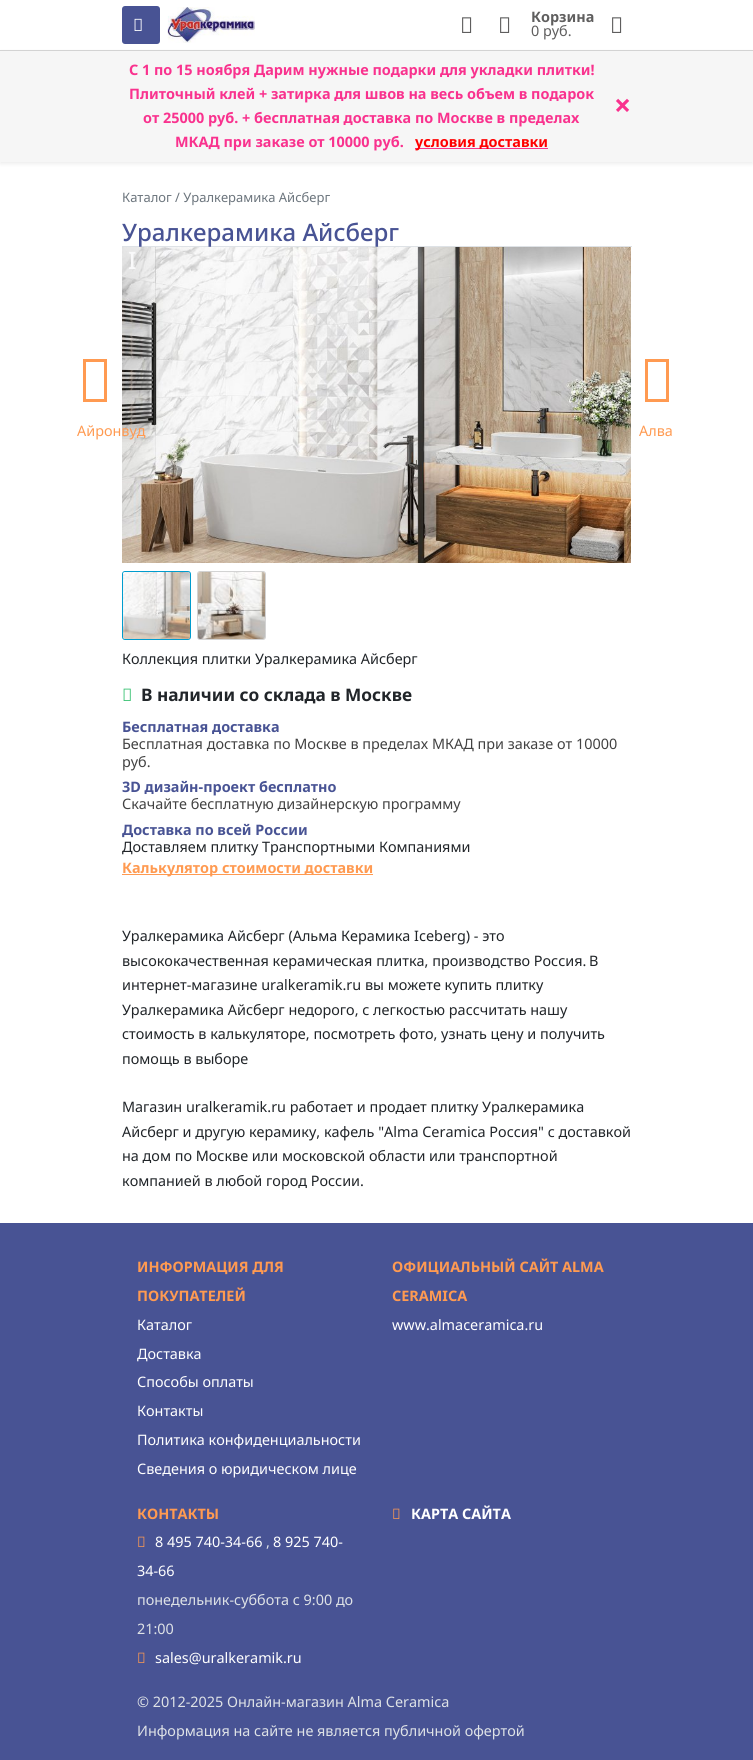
import math
import cairo


def round_path(ctx, x, y, w, h, r):
	ctx.new_sub_path()
	for i, (u, v) in enumerate([(x + w - r, y + h - r), (x + r, y + h - r), (x + r, y + r), (x + w - r, y + r)]):
		ctx.arc(u, v, r, i * math.pi / 2, (i + 1) * math.pi / 2)
	ctx.close_path()

def blur_box(ctx, x, y, w, h, r, blur, alpha):
	ctx.push_group_with_content(cairo.CONTENT_ALPHA)
	ctx.set_operator(cairo.OPERATOR_SOURCE)
	for i in range(15, -16, -2):
		e = blur * i / 6
		if min(w, h) + 2 * e > 0:
			ctx.set_source_rgba(0, 0, 0, alpha * math.erfc((i - 1) / 8.5) / 2)
			round_path(ctx, x - e, y - e, w + 2 * e, h + 2 * e, max(0, min(r + e + blur * .6, min(w, h) / 2 + e)))
			ctx.fill()
	ctx.mask(ctx.pop_group())

def paste(ctx, path, x, y, w, h):
	ctx.save()
	ctx.set_source_surface(cairo.ImageSurface.create_from_png(path), x, y)
	ctx.rectangle(x, y, w, h)
	ctx.fill()
	ctx.restore()

def draw(ctx):
	ctx.set_source_rgb(1, 1, 1)
	ctx.paint()
	ctx.set_source_rgb(0, 0, 0)
	blur_box(ctx, 0, 52, 753, 112, 0, 2, 0.07)
	ctx.set_source_rgb(0.827, 0.827, 0.827)
	ctx.rectangle(0, 50, 753, 1)
	ctx.fill()
	ctx.set_source_rgb(0.282, 0.325, 0.58)
	round_path(ctx, 122, 6, 38, 38, 3)
	ctx.fill()
	paste(ctx, 'media/1.png', 134, 18, 8, 13)
	paste(ctx, 'media/2.png', 167, 7, 88, 36)
	paste(ctx, 'media/3.png', 462, 17, 10, 16)
	paste(ctx, 'media/3.png', 500, 17, 10, 16)
	ctx.select_font_face('Noto Sans', cairo.FONT_SLANT_NORMAL, cairo.FONT_WEIGHT_BOLD)
	ctx.set_font_size(14.4)
	ctx.set_source_rgb(0.373, 0.369, 0.369)
	ctx.move_to(531, 22)
	ctx.show_text('Корзина')
	ctx.select_font_face('Noto Sans')
	ctx.move_to(531, 36)
	ctx.show_text('0 руб.')
	paste(ctx, 'media/3.png', 612, 17, 10, 16)
	ctx.set_source_rgb(0.961, 0.961, 0.961)
	ctx.rectangle(0, 51, 753, 111)
	ctx.fill()
	ctx.select_font_face('Noto Sans', cairo.FONT_SLANT_NORMAL, cairo.FONT_WEIGHT_BOLD)
	ctx.set_source_rgb(0.976, 0.196, 0.557)
	ctx.move_to(129, 75)
	ctx.show_text('С 1 по 15 ноября Дарим нужные подарки для укладки плитки!')
	ctx.move_to(129, 99)
	ctx.show_text('Плиточный клей + затирка для швов на весь объем в подарок')
	ctx.set_font_size(30)
	ctx.move_to(614, 116)
	ctx.show_text('×')
	ctx.set_font_size(14.4)
	ctx.move_to(143, 123)
	ctx.show_text('от 25000 руб. + бесплатная доставка по Москве в пределах')
	ctx.move_to(175, 147)
	ctx.show_text('МКАД при заказе от 10000 руб.')
	ctx.rectangle(415, 148, 133, 1)
	ctx.fill()
	ctx.set_source_rgb(1, 0, 0)
	ctx.move_to(415, 147)
	ctx.show_text('условия доставки')
	ctx.select_font_face('Noto Sans')
	ctx.set_font_size(13)
	ctx.set_source_rgb(0.424, 0.459, 0.49)
	ctx.move_to(122, 202)
	ctx.show_text('Каталог / Уралкерамика Айсберг')
	ctx.set_source_rgb(0.871, 0.886, 0.902)
	ctx.rectangle(122, 246, 510, 1)
	ctx.fill()
	ctx.select_font_face('Noto Sans Medium')
	ctx.set_font_size(24)
	ctx.set_source_rgb(0.282, 0.325, 0.58)
	ctx.move_to(122, 241)
	ctx.show_text('Уралкерамика Айсберг')
	paste(ctx, 'media/4.png', 122, 247, 509, 316)
	ctx.set_source_rgb(0.973, 0.976, 0.98)
	ctx.move_to(128, 269)
	ctx.show_text('I')
	round_path(ctx, 122.5, 571.5, 68, 68, 2.5)
	ctx.set_source_rgb(0, 0.612, 0.808)
	ctx.set_line_width(1)
	ctx.stroke()
	paste(ctx, 'media/5.png', 123, 572, 67, 67)
	round_path(ctx, 197.5, 571.5, 68, 68, 2.5)
	ctx.set_source_rgb(0.827, 0.827, 0.827)
	ctx.stroke()
	paste(ctx, 'media/6.png', 198, 572, 67, 67)
	ctx.select_font_face('Noto Sans')
	ctx.set_font_size(14.4)
	ctx.set_source_rgb(0.129, 0.145, 0.161)
	ctx.move_to(122, 664)
	ctx.show_text('Коллекция плитки Уралкерамика Айсберг')
	paste(ctx, 'media/7.png', 123, 688, 8, 13)
	ctx.select_font_face('Noto Sans', cairo.FONT_SLANT_NORMAL, cairo.FONT_WEIGHT_BOLD)
	ctx.set_font_size(17.25)
	ctx.move_to(141, 701)
	ctx.show_text('В наличии со склада в Москве')
	ctx.set_font_size(14.4)
	ctx.set_source_rgb(0.282, 0.325, 0.58)
	ctx.move_to(122, 732)
	ctx.show_text('Бесплатная доставка')
	ctx.select_font_face('Noto Sans')
	ctx.set_source_rgb(0.259, 0.259, 0.259)
	ctx.move_to(122, 749)
	ctx.show_text('Бесплатная доставка по Москве в пределах МКАД при заказе от 10000')
	ctx.move_to(122, 767)
	ctx.show_text('руб.')
	ctx.select_font_face('Noto Sans', cairo.FONT_SLANT_NORMAL, cairo.FONT_WEIGHT_BOLD)
	ctx.set_source_rgb(0.282, 0.325, 0.58)
	ctx.move_to(122, 792)
	ctx.show_text('3D дизайн-проект бесплатно')
	ctx.select_font_face('Noto Sans')
	ctx.set_source_rgb(0.259, 0.259, 0.259)
	ctx.move_to(122, 809)
	ctx.show_text('Скачайте бесплатную дизайнерскую программу')
	ctx.select_font_face('Noto Sans', cairo.FONT_SLANT_NORMAL, cairo.FONT_WEIGHT_BOLD)
	ctx.set_source_rgb(0.282, 0.325, 0.58)
	ctx.move_to(122, 835)
	ctx.show_text('Доставка по всей России')
	ctx.select_font_face('Noto Sans')
	ctx.set_source_rgb(0.129, 0.145, 0.161)
	ctx.move_to(122, 852)
	ctx.show_text('Доставляем плитку Транспортными Компаниями')
	ctx.set_source_rgb(1, 0.604, 0.318)
	ctx.rectangle(122, 874, 251, 1)
	ctx.fill()
	ctx.select_font_face('Noto Sans', cairo.FONT_SLANT_NORMAL, cairo.FONT_WEIGHT_BOLD)
	ctx.move_to(122, 873)
	ctx.show_text('Калькулятор стоимости доставки')
	ctx.new_path()
	ctx.move_to(83, 402)
	ctx.line_to(83, 359)
	ctx.line_to(107, 359)
	ctx.line_to(107, 402)
	ctx.close_path()
	ctx.move_to(86, 399)
	ctx.line_to(104, 399)
	ctx.line_to(104, 362)
	ctx.line_to(86, 362)
	ctx.close_path()
	ctx.fill()
	ctx.select_font_face('Noto Sans')
	ctx.move_to(77, 436)
	ctx.show_text('Айронвуд')
	ctx.new_path()
	ctx.move_to(645, 402)
	ctx.line_to(645, 359)
	ctx.line_to(669, 359)
	ctx.line_to(669, 402)
	ctx.close_path()
	ctx.move_to(648, 399)
	ctx.line_to(666, 399)
	ctx.line_to(666, 362)
	ctx.line_to(648, 362)
	ctx.close_path()
	ctx.fill()
	ctx.move_to(639, 436)
	ctx.show_text('Алва')
	ctx.set_source_rgb(0.129, 0.145, 0.161)
	for x, y, s in [
		(122, 941, 'Уралкерамика Айсберг (Альма Керамика Iceberg) - это'),
		(122, 966, 'высококачественная керамическая плитка, производство Россия.'),
		(589, 966, 'В'),
		(122, 990, 'интернет-магазине uralkeramik.ru вы можете купить плитку'),
		(122, 1015, 'Уралкерамика Айсберг недорого, с легкостью рассчитать нашу'),
		(122, 1039, 'стоимость в калькуляторе, посмотреть фото, узнать цену и получить'),
		(122, 1064, 'помощь в выборе'),
		(122, 1112, 'Магазин uralkeramik.ru работает и продает плитку Уралкерамика'),
		(122, 1137, 'Айсберг и другую керамику, кафель "Alma Ceramica Россия" с доставкой'),
		(122, 1161, 'на дом по Москве или московской области или транспортной'),
		(122, 1186, 'компанией в любой город России.'),
	]:
		ctx.move_to(x, y)
		ctx.show_text(s)
	ctx.set_source_rgb(0.282, 0.325, 0.58)
	ctx.rectangle(0, 1223, 753, 537)
	ctx.fill()
	ctx.select_font_face('Noto Sans', cairo.FONT_SLANT_NORMAL, cairo.FONT_WEIGHT_BOLD)
	ctx.set_source_rgb(1, 0.604, 0.318)
	ctx.move_to(137, 1272)
	ctx.show_text('ИНФОРМАЦИЯ ДЛЯ')
	ctx.move_to(137, 1301)
	ctx.show_text('ПОКУПАТЕЛЕЙ')
	ctx.select_font_face('Noto Sans')
	ctx.set_source_rgb(1, 1, 1)
	for x, y, s in [
		(137, 1330, 'Каталог'),
		(137, 1359, 'Доставка'),
		(137, 1387, 'Способы оплаты'),
		(137, 1416, 'Контакты'),
		(137, 1445, 'Политика конфиденциальности'),
		(137, 1474, 'Сведения о юридическом лице'),
	]:
		ctx.move_to(x, y)
		ctx.show_text(s)
	ctx.select_font_face('Noto Sans', cairo.FONT_SLANT_NORMAL, cairo.FONT_WEIGHT_BOLD)
	ctx.set_source_rgb(1, 0.604, 0.318)
	ctx.move_to(392, 1272)
	ctx.show_text('ОФИЦИАЛЬНЫЙ САЙТ ALMA')
	ctx.move_to(392, 1301)
	ctx.show_text('CERAMICA')
	ctx.select_font_face('Noto Sans')
	ctx.set_source_rgb(1, 1, 1)
	ctx.move_to(392, 1330)
	ctx.show_text('www.almaceramica.ru')
	ctx.select_font_face('Noto Sans', cairo.FONT_SLANT_NORMAL, cairo.FONT_WEIGHT_BOLD)
	ctx.set_source_rgb(1, 0.604, 0.318)
	ctx.move_to(137, 1519)
	ctx.show_text('КОНТАКТЫ')
	paste(ctx, 'media/8.png', 138, 1536, 7, 11)
	ctx.select_font_face('Noto Sans')
	ctx.set_source_rgb(1, 1, 1)
	ctx.move_to(155, 1547)
	ctx.show_text('8 495 740-34-66')
	ctx.set_source_rgb(0.871, 0.886, 0.902)
	ctx.move_to(266, 1547)
	ctx.show_text(',')
	ctx.set_source_rgb(1, 1, 1)
	ctx.move_to(273, 1547)
	ctx.show_text('8 925 740-')
	ctx.move_to(137, 1576)
	ctx.show_text('34-66')
	ctx.set_source_rgb(0.871, 0.886, 0.902)
	ctx.move_to(137, 1605)
	ctx.show_text('понедельник-суббота с 9:00 до')
	ctx.move_to(137, 1634)
	ctx.show_text('21:00')
	paste(ctx, 'media/8.png', 138, 1652, 7, 11)
	ctx.set_source_rgb(1, 1, 1)
	ctx.move_to(155, 1663)
	ctx.show_text('sales@uralkeramik.ru')
	paste(ctx, 'media/8.png', 393, 1508, 7, 11)
	ctx.select_font_face('Noto Sans', cairo.FONT_SLANT_NORMAL, cairo.FONT_WEIGHT_BOLD)
	ctx.move_to(411, 1519)
	ctx.show_text('КАРТА САЙТА')
	ctx.select_font_face('Noto Sans')
	ctx.set_source_rgb(0.871, 0.886, 0.902)
	ctx.move_to(137, 1707)
	ctx.show_text('© 2012-2025 Онлайн-магазин Alma Ceramica')
	ctx.move_to(137, 1736)
	ctx.show_text('Информация на сайте не является публичной офертой')


surface = cairo.ImageSurface(cairo.FORMAT_RGB24, 753, 1760)
ctx = cairo.Context(surface)
options = cairo.FontOptions()
options.set_hint_metrics(cairo.HINT_METRICS_OFF)
options.set_hint_style(cairo.HINT_STYLE_NONE)
ctx.set_font_options(options)
ctx.set_miter_limit(4)
draw(ctx)
surface.write_to_png('image.png')
